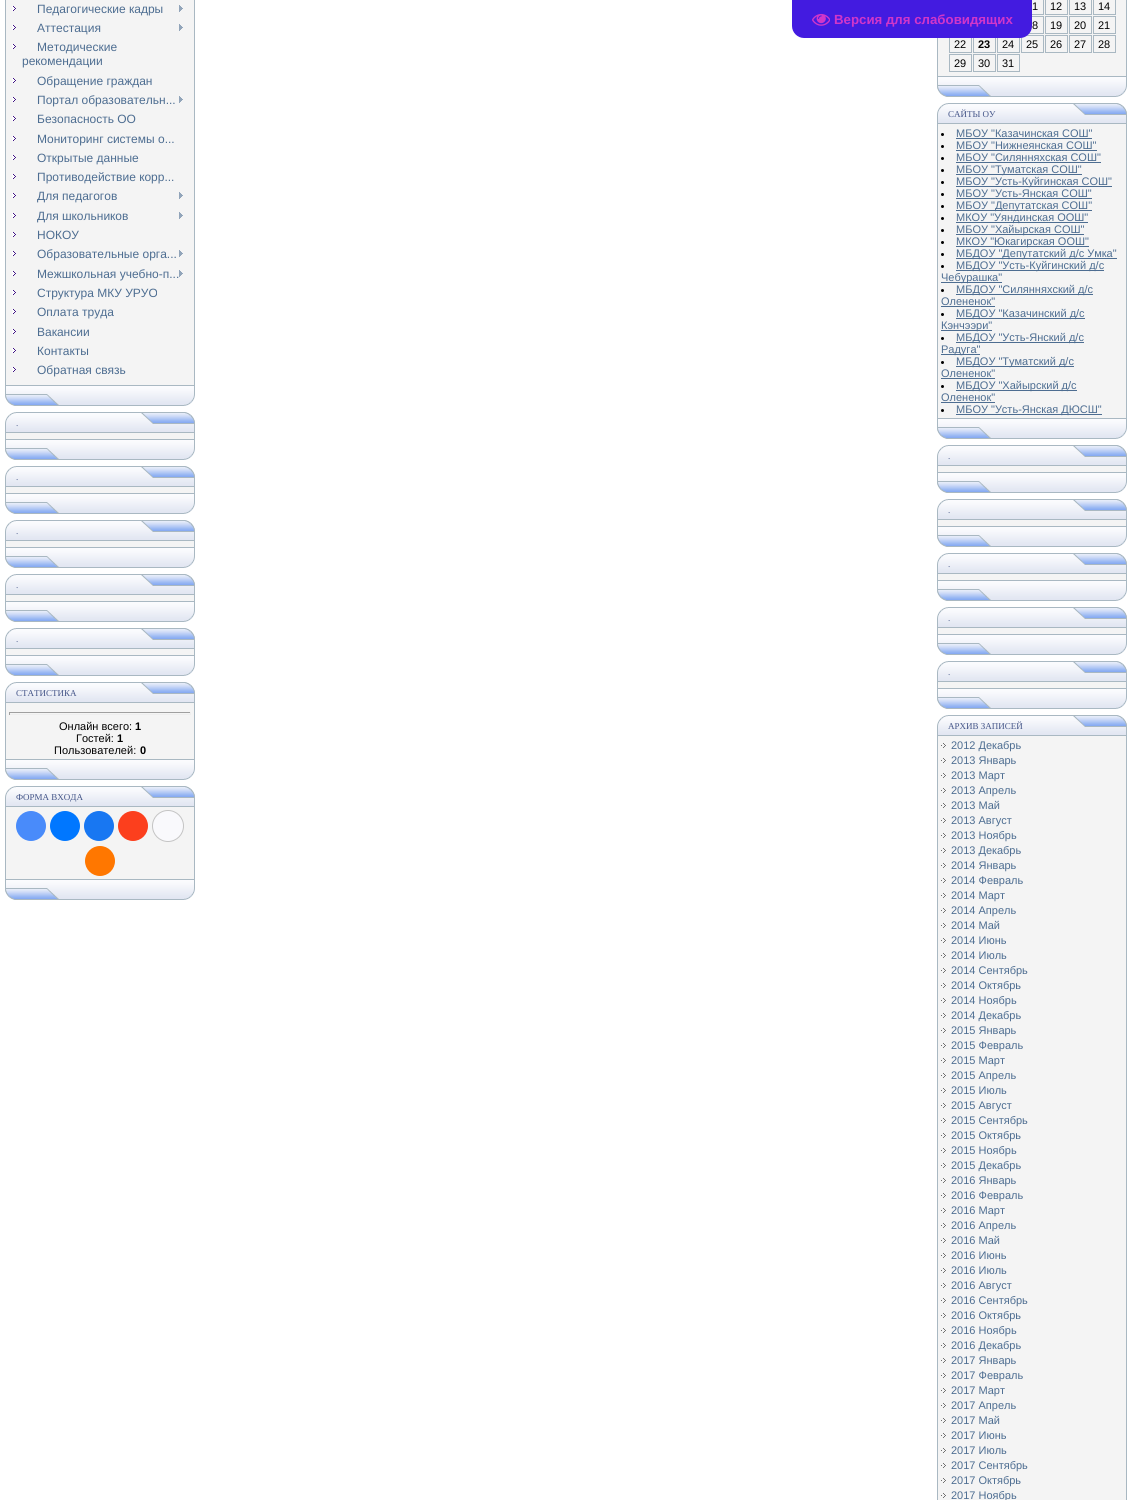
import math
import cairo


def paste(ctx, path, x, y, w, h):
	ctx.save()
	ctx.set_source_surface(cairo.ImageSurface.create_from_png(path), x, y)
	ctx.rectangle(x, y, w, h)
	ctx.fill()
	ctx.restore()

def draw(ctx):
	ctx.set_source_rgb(1, 1, 1)
	ctx.paint()
	ctx.set_source_rgb(0.957, 0.957, 0.957)
	ctx.rectangle(6, 0, 188, 385)
	ctx.fill()
	ctx.set_source_rgb(0.663, 0.722, 0.761)
	ctx.rectangle(194, 0, 1, 385)
	ctx.rectangle(5, 0, 1, 385)
	ctx.fill()
	paste(ctx, 'media/1.png', 12, 6, 4, 5)
	ctx.select_font_face('Liberation Sans')
	ctx.set_font_size(12)
	ctx.set_source_rgb(0.302, 0.427, 0.569)
	ctx.move_to(37, 13)
	ctx.show_text('Педагогические кадры')
	paste(ctx, 'media/2.png', 179, 5, 4, 7)
	paste(ctx, 'media/1.png', 12, 25, 4, 5)
	ctx.move_to(37, 32)
	ctx.show_text('Аттестация')
	paste(ctx, 'media/2.png', 179, 24, 4, 7)
	paste(ctx, 'media/1.png', 12, 44, 4, 5)
	ctx.move_to(37, 51)
	ctx.show_text('Методические')
	ctx.move_to(22, 65)
	ctx.show_text('рекомендации')
	paste(ctx, 'media/1.png', 12, 78, 4, 5)
	ctx.move_to(37, 85)
	ctx.show_text('Обращение граждан')
	paste(ctx, 'media/1.png', 12, 97, 4, 5)
	ctx.move_to(37, 104)
	ctx.show_text('Портал образовательн...')
	paste(ctx, 'media/2.png', 179, 96, 4, 7)
	paste(ctx, 'media/1.png', 12, 116, 4, 5)
	ctx.move_to(37, 123)
	ctx.show_text('Безопасность ОО')
	paste(ctx, 'media/1.png', 12, 136, 4, 5)
	ctx.move_to(37, 143)
	ctx.show_text('Мониторинг системы о...')
	paste(ctx, 'media/1.png', 12, 155, 4, 5)
	ctx.move_to(37, 162)
	ctx.show_text('Открытые данные')
	paste(ctx, 'media/1.png', 12, 174, 4, 5)
	ctx.move_to(37, 181)
	ctx.show_text('Противодействие корр...')
	paste(ctx, 'media/1.png', 12, 193, 4, 5)
	ctx.move_to(37, 200)
	ctx.show_text('Для педагогов')
	paste(ctx, 'media/2.png', 179, 192, 4, 7)
	paste(ctx, 'media/1.png', 12, 213, 4, 5)
	ctx.move_to(37, 220)
	ctx.show_text('Для школьников')
	paste(ctx, 'media/2.png', 179, 212, 4, 7)
	paste(ctx, 'media/1.png', 12, 232, 4, 5)
	ctx.move_to(37, 239)
	ctx.show_text('НОКОУ')
	paste(ctx, 'media/1.png', 12, 251, 4, 5)
	ctx.move_to(37, 258)
	ctx.show_text('Образовательные орга...')
	paste(ctx, 'media/2.png', 179, 250, 4, 7)
	paste(ctx, 'media/1.png', 12, 271, 4, 5)
	ctx.move_to(37, 278)
	ctx.show_text('Межшкольная учебно-п...')
	paste(ctx, 'media/2.png', 179, 270, 4, 7)
	paste(ctx, 'media/1.png', 12, 290, 4, 5)
	ctx.move_to(37, 297)
	ctx.show_text('Структура МКУ УРУО')
	paste(ctx, 'media/1.png', 12, 309, 4, 5)
	ctx.move_to(37, 316)
	ctx.show_text('Оплата труда')
	paste(ctx, 'media/1.png', 12, 329, 4, 5)
	ctx.move_to(37, 336)
	ctx.show_text('Вакансии')
	paste(ctx, 'media/1.png', 12, 348, 4, 5)
	ctx.move_to(37, 355)
	ctx.show_text('Контакты')
	paste(ctx, 'media/1.png', 12, 367, 4, 5)
	ctx.move_to(37, 374)
	ctx.show_text('Обратная связь')
	paste(ctx, 'media/3.png', 5, 385, 190, 21)
	paste(ctx, 'media/4.png', 5, 412, 11, 21)
	paste(ctx, 'media/5.png', 16, 412, 125, 21)
	ctx.select_font_face('Liberation Serif')
	ctx.set_font_size(9)
	ctx.set_source_rgb(0.267, 0.333, 0.533)
	ctx.move_to(16, 426)
	ctx.show_text('.')
	paste(ctx, 'media/6.png', 141, 412, 54, 21)
	ctx.set_source_rgb(0.957, 0.957, 0.957)
	ctx.rectangle(5, 433, 190, 6)
	ctx.fill()
	ctx.set_source_rgb(0.663, 0.722, 0.761)
	ctx.rectangle(194, 433, 1, 6)
	ctx.rectangle(5, 433, 1, 6)
	ctx.fill()
	paste(ctx, 'media/3.png', 5, 439, 190, 21)
	paste(ctx, 'media/4.png', 5, 466, 11, 21)
	paste(ctx, 'media/5.png', 16, 466, 125, 21)
	ctx.set_source_rgb(0.267, 0.333, 0.533)
	ctx.move_to(16, 480)
	ctx.show_text('.')
	paste(ctx, 'media/6.png', 141, 466, 54, 21)
	ctx.set_source_rgb(0.957, 0.957, 0.957)
	ctx.rectangle(5, 487, 190, 6)
	ctx.fill()
	ctx.set_source_rgb(0.663, 0.722, 0.761)
	ctx.rectangle(194, 487, 1, 6)
	ctx.rectangle(5, 487, 1, 6)
	ctx.fill()
	paste(ctx, 'media/3.png', 5, 493, 190, 21)
	paste(ctx, 'media/4.png', 5, 520, 11, 21)
	paste(ctx, 'media/5.png', 16, 520, 125, 21)
	ctx.set_source_rgb(0.267, 0.333, 0.533)
	ctx.move_to(16, 534)
	ctx.show_text('.')
	paste(ctx, 'media/6.png', 141, 520, 54, 21)
	ctx.set_source_rgb(0.957, 0.957, 0.957)
	ctx.rectangle(5, 541, 190, 6)
	ctx.fill()
	ctx.set_source_rgb(0.663, 0.722, 0.761)
	ctx.rectangle(194, 541, 1, 6)
	ctx.rectangle(5, 541, 1, 6)
	ctx.fill()
	paste(ctx, 'media/3.png', 5, 547, 190, 21)
	paste(ctx, 'media/4.png', 5, 574, 11, 21)
	paste(ctx, 'media/5.png', 16, 574, 125, 21)
	ctx.set_source_rgb(0.267, 0.333, 0.533)
	ctx.move_to(16, 588)
	ctx.show_text('.')
	paste(ctx, 'media/6.png', 141, 574, 54, 21)
	ctx.set_source_rgb(0.957, 0.957, 0.957)
	ctx.rectangle(5, 595, 190, 6)
	ctx.fill()
	ctx.set_source_rgb(0.663, 0.722, 0.761)
	ctx.rectangle(194, 595, 1, 6)
	ctx.rectangle(5, 595, 1, 6)
	ctx.fill()
	paste(ctx, 'media/3.png', 5, 601, 190, 21)
	paste(ctx, 'media/4.png', 5, 628, 11, 21)
	paste(ctx, 'media/5.png', 16, 628, 125, 21)
	ctx.set_source_rgb(0.267, 0.333, 0.533)
	ctx.move_to(16, 642)
	ctx.show_text('.')
	paste(ctx, 'media/6.png', 141, 628, 54, 21)
	ctx.set_source_rgb(0.957, 0.957, 0.957)
	ctx.rectangle(5, 649, 190, 6)
	ctx.fill()
	ctx.set_source_rgb(0.663, 0.722, 0.761)
	ctx.rectangle(194, 649, 1, 6)
	ctx.rectangle(5, 649, 1, 6)
	ctx.fill()
	paste(ctx, 'media/3.png', 5, 655, 190, 21)
	paste(ctx, 'media/4.png', 5, 682, 11, 21)
	paste(ctx, 'media/5.png', 16, 682, 125, 21)
	ctx.set_source_rgb(0.267, 0.333, 0.533)
	ctx.move_to(16, 696)
	ctx.show_text('СТАТИСТИКА')
	paste(ctx, 'media/6.png', 141, 682, 54, 21)
	ctx.set_source_rgb(0.957, 0.957, 0.957)
	ctx.rectangle(6, 703, 188, 56)
	ctx.fill()
	ctx.set_source_rgb(0.663, 0.722, 0.761)
	ctx.rectangle(194, 703, 1, 56)
	ctx.rectangle(5, 703, 1, 56)
	ctx.fill()
	ctx.set_source_rgb(0.624, 0.624, 0.624)
	ctx.rectangle(9, 712, 182, 1)
	ctx.fill()
	ctx.set_source_rgb(0.933, 0.933, 0.933)
	ctx.rectangle(190, 712, 1, 3)
	ctx.rectangle(9, 714, 182, 1)
	ctx.fill()
	ctx.set_source_rgb(0.624, 0.624, 0.624)
	ctx.rectangle(9, 712, 1, 3)
	ctx.fill()
	ctx.select_font_face('Liberation Sans')
	ctx.set_font_size(11)
	ctx.set_source_rgb(0, 0, 0)
	ctx.move_to(59, 730)
	ctx.show_text('Онлайн всего:')
	ctx.select_font_face('Liberation Sans', cairo.FONT_SLANT_NORMAL, cairo.FONT_WEIGHT_BOLD)
	ctx.move_to(135, 730)
	ctx.show_text('1')
	ctx.select_font_face('Liberation Sans')
	ctx.move_to(76, 742)
	ctx.show_text('Гостей:')
	ctx.select_font_face('Liberation Sans', cairo.FONT_SLANT_NORMAL, cairo.FONT_WEIGHT_BOLD)
	ctx.move_to(117, 742)
	ctx.show_text('1')
	ctx.select_font_face('Liberation Sans')
	ctx.move_to(54, 754)
	ctx.show_text('Пользователей:')
	ctx.select_font_face('Liberation Sans', cairo.FONT_SLANT_NORMAL, cairo.FONT_WEIGHT_BOLD)
	ctx.move_to(140, 754)
	ctx.show_text('0')
	paste(ctx, 'media/3.png', 5, 759, 190, 21)
	paste(ctx, 'media/4.png', 5, 786, 11, 21)
	paste(ctx, 'media/5.png', 16, 786, 125, 21)
	ctx.select_font_face('Liberation Serif')
	ctx.set_font_size(9)
	ctx.set_source_rgb(0.267, 0.333, 0.533)
	ctx.move_to(16, 800)
	ctx.show_text('ФОРМА ВХОДА')
	paste(ctx, 'media/6.png', 141, 786, 54, 21)
	ctx.set_source_rgb(0.957, 0.957, 0.957)
	ctx.rectangle(6, 807, 188, 72)
	ctx.fill()
	ctx.set_source_rgb(0.663, 0.722, 0.761)
	ctx.rectangle(194, 807, 1, 72)
	ctx.rectangle(5, 807, 1, 72)
	ctx.fill()
	ctx.set_source_rgb(0.286, 0.545, 0.98)
	ctx.arc(31, 826, 15, 0, 2 * math.pi)
	ctx.fill()
	ctx.set_source_rgb(0, 0.467, 1)
	ctx.arc(65, 826, 15, 0, 2 * math.pi)
	ctx.fill()
	ctx.set_source_rgb(0.094, 0.467, 0.949)
	ctx.arc(99, 826, 15, 0, 2 * math.pi)
	ctx.fill()
	ctx.set_source_rgb(0.988, 0.247, 0.114)
	ctx.arc(133, 826, 15, 0, 2 * math.pi)
	ctx.fill()
	ctx.set_source_rgb(0.973, 0.973, 0.988)
	ctx.arc(168, 826, 15.5, 0, 2 * math.pi)
	ctx.fill_preserve()
	ctx.set_source_rgb(0.769, 0.769, 0.769)
	ctx.set_line_width(1)
	ctx.stroke()
	ctx.set_source_rgb(1, 0.467, 0)
	ctx.arc(100, 861, 15, 0, 2 * math.pi)
	ctx.fill()
	paste(ctx, 'media/3.png', 5, 879, 190, 21)
	ctx.set_source_rgb(0.957, 0.957, 0.957)
	ctx.rectangle(938, 0, 188, 76)
	ctx.fill()
	ctx.set_source_rgb(0.663, 0.722, 0.761)
	ctx.rectangle(1126, 0, 1, 76)
	ctx.rectangle(937, 38, 1, 38)
	ctx.fill()
	ctx.rectangle(1021.5, -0.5, 22, 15)
	ctx.stroke()
	ctx.select_font_face('Liberation Sans')
	ctx.set_font_size(11)
	ctx.set_source_rgb(0, 0, 0)
	ctx.move_to(1032, 10)
	ctx.show_text('1')
	ctx.rectangle(1045.5, -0.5, 22, 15)
	ctx.set_source_rgb(0.663, 0.722, 0.761)
	ctx.stroke()
	ctx.set_source_rgb(0, 0, 0)
	ctx.move_to(1050, 10)
	ctx.show_text('12')
	ctx.rectangle(1069.5, -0.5, 22, 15)
	ctx.set_source_rgb(0.663, 0.722, 0.761)
	ctx.stroke()
	ctx.set_source_rgb(0, 0, 0)
	ctx.move_to(1074, 10)
	ctx.show_text('13')
	ctx.rectangle(1093.5, -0.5, 22, 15)
	ctx.set_source_rgb(0.663, 0.722, 0.761)
	ctx.stroke()
	ctx.set_source_rgb(0, 0, 0)
	ctx.move_to(1098, 10)
	ctx.show_text('14')
	ctx.rectangle(1021.5, 16.5, 22, 17)
	ctx.set_source_rgb(0.663, 0.722, 0.761)
	ctx.stroke()
	ctx.set_source_rgb(0, 0, 0)
	ctx.move_to(1032, 29)
	ctx.show_text('8')
	ctx.rectangle(1045.5, 16.5, 22, 17)
	ctx.set_source_rgb(0.663, 0.722, 0.761)
	ctx.stroke()
	ctx.set_source_rgb(0, 0, 0)
	ctx.move_to(1050, 29)
	ctx.show_text('19')
	ctx.rectangle(1069.5, 16.5, 22, 17)
	ctx.set_source_rgb(0.663, 0.722, 0.761)
	ctx.stroke()
	ctx.set_source_rgb(0, 0, 0)
	ctx.move_to(1074, 29)
	ctx.show_text('20')
	ctx.rectangle(1093.5, 16.5, 22, 17)
	ctx.set_source_rgb(0.663, 0.722, 0.761)
	ctx.stroke()
	ctx.set_source_rgb(0, 0, 0)
	ctx.move_to(1098, 29)
	ctx.show_text('21')
	ctx.rectangle(949.5, 35.5, 22, 17)
	ctx.set_source_rgb(0.663, 0.722, 0.761)
	ctx.stroke()
	ctx.set_source_rgb(0, 0, 0)
	ctx.move_to(954, 48)
	ctx.show_text('22')
	ctx.rectangle(973.5, 35.5, 22, 17)
	ctx.set_source_rgb(0.663, 0.722, 0.761)
	ctx.stroke()
	ctx.select_font_face('Liberation Sans', cairo.FONT_SLANT_NORMAL, cairo.FONT_WEIGHT_BOLD)
	ctx.set_source_rgb(0, 0, 0)
	ctx.move_to(978, 48)
	ctx.show_text('23')
	ctx.rectangle(997.5, 35.5, 22, 17)
	ctx.set_source_rgb(0.663, 0.722, 0.761)
	ctx.stroke()
	ctx.select_font_face('Liberation Sans')
	ctx.set_source_rgb(0, 0, 0)
	ctx.move_to(1002, 48)
	ctx.show_text('24')
	ctx.rectangle(1021.5, 35.5, 22, 17)
	ctx.set_source_rgb(0.663, 0.722, 0.761)
	ctx.stroke()
	ctx.set_source_rgb(0, 0, 0)
	ctx.move_to(1026, 48)
	ctx.show_text('25')
	ctx.rectangle(1045.5, 35.5, 22, 17)
	ctx.set_source_rgb(0.663, 0.722, 0.761)
	ctx.stroke()
	ctx.set_source_rgb(0, 0, 0)
	ctx.move_to(1050, 48)
	ctx.show_text('26')
	ctx.rectangle(1069.5, 35.5, 22, 17)
	ctx.set_source_rgb(0.663, 0.722, 0.761)
	ctx.stroke()
	ctx.set_source_rgb(0, 0, 0)
	ctx.move_to(1074, 48)
	ctx.show_text('27')
	ctx.rectangle(1093.5, 35.5, 22, 17)
	ctx.set_source_rgb(0.663, 0.722, 0.761)
	ctx.stroke()
	ctx.set_source_rgb(0, 0, 0)
	ctx.move_to(1098, 48)
	ctx.show_text('28')
	ctx.rectangle(949.5, 54.5, 22, 17)
	ctx.set_source_rgb(0.663, 0.722, 0.761)
	ctx.stroke()
	ctx.set_source_rgb(0, 0, 0)
	ctx.move_to(954, 67)
	ctx.show_text('29')
	ctx.rectangle(973.5, 54.5, 22, 17)
	ctx.set_source_rgb(0.663, 0.722, 0.761)
	ctx.stroke()
	ctx.set_source_rgb(0, 0, 0)
	ctx.move_to(978, 67)
	ctx.show_text('30')
	ctx.rectangle(997.5, 54.5, 22, 17)
	ctx.set_source_rgb(0.663, 0.722, 0.761)
	ctx.stroke()
	ctx.set_source_rgb(0, 0, 0)
	ctx.move_to(1002, 67)
	ctx.show_text('31')
	paste(ctx, 'media/3.png', 937, 76, 190, 21)
	paste(ctx, 'media/4.png', 937, 103, 11, 21)
	paste(ctx, 'media/5.png', 948, 103, 125, 21)
	ctx.select_font_face('Liberation Serif')
	ctx.set_font_size(9)
	ctx.set_source_rgb(0.267, 0.333, 0.533)
	ctx.move_to(948, 117)
	ctx.show_text('САЙТЫ ОУ')
	paste(ctx, 'media/6.png', 1073, 103, 54, 21)
	ctx.set_source_rgb(0.957, 0.957, 0.957)
	ctx.rectangle(938, 124, 188, 294)
	ctx.fill()
	ctx.set_source_rgb(0.663, 0.722, 0.761)
	ctx.rectangle(1126, 124, 1, 294)
	ctx.rectangle(937, 124, 1, 294)
	ctx.fill()
	ctx.set_source_rgb(0, 0, 0)
	ctx.arc(942.5, 134.5, 1.5, 0, 2 * math.pi)
	ctx.fill()
	ctx.select_font_face('Liberation Sans')
	ctx.set_font_size(11)
	ctx.set_source_rgb(0.302, 0.427, 0.569)
	ctx.move_to(956, 137)
	ctx.show_text('МБОУ "Казачинская СОШ"')
	ctx.rectangle(956, 138, 136, 1)
	ctx.fill()
	ctx.set_source_rgb(0, 0, 0)
	ctx.arc(942.5, 146.5, 1.5, 0, 2 * math.pi)
	ctx.fill()
	ctx.set_source_rgb(0.302, 0.427, 0.569)
	ctx.move_to(956, 149)
	ctx.show_text('МБОУ "Нижнеянская СОШ"')
	ctx.rectangle(956, 150, 141, 1)
	ctx.fill()
	ctx.set_source_rgb(0, 0, 0)
	ctx.arc(942.5, 158.5, 1.5, 0, 2 * math.pi)
	ctx.fill()
	ctx.set_source_rgb(0.302, 0.427, 0.569)
	ctx.move_to(956, 161)
	ctx.show_text('МБОУ "Силянняхская СОШ"')
	ctx.rectangle(956, 162, 145, 1)
	ctx.fill()
	ctx.set_source_rgb(0, 0, 0)
	ctx.arc(942.5, 170.5, 1.5, 0, 2 * math.pi)
	ctx.fill()
	ctx.set_source_rgb(0.302, 0.427, 0.569)
	ctx.rectangle(956, 174, 126, 1)
	ctx.fill()
	ctx.move_to(956, 173)
	ctx.show_text('МБОУ "Туматская СОШ"')
	ctx.set_source_rgb(0, 0, 0)
	ctx.new_path()
	ctx.arc(942.5, 182.5, 1.5, 0, 2 * math.pi)
	ctx.fill()
	ctx.set_source_rgb(0.302, 0.427, 0.569)
	ctx.rectangle(956, 186, 156, 1)
	ctx.fill()
	ctx.move_to(956, 185)
	ctx.show_text('МБОУ "Усть-Куйгинская СОШ"')
	ctx.set_source_rgb(0, 0, 0)
	ctx.new_path()
	ctx.arc(942.5, 194.5, 1.5, 0, 2 * math.pi)
	ctx.fill()
	ctx.set_source_rgb(0.302, 0.427, 0.569)
	ctx.move_to(956, 197)
	ctx.show_text('МБОУ "Усть-Янская СОШ"')
	ctx.rectangle(956, 198, 136, 1)
	ctx.fill()
	ctx.set_source_rgb(0, 0, 0)
	ctx.arc(942.5, 206.5, 1.5, 0, 2 * math.pi)
	ctx.fill()
	ctx.set_source_rgb(0.302, 0.427, 0.569)
	ctx.rectangle(956, 210, 136, 1)
	ctx.fill()
	ctx.move_to(956, 209)
	ctx.show_text('МБОУ "Депутатская СОШ"')
	ctx.set_source_rgb(0, 0, 0)
	ctx.new_path()
	ctx.arc(942.5, 218.5, 1.5, 0, 2 * math.pi)
	ctx.fill()
	ctx.set_source_rgb(0.302, 0.427, 0.569)
	ctx.rectangle(956, 222, 132, 1)
	ctx.fill()
	ctx.move_to(956, 221)
	ctx.show_text('МКОУ "Уяндинская ООШ"')
	ctx.set_source_rgb(0, 0, 0)
	ctx.new_path()
	ctx.arc(942.5, 230.5, 1.5, 0, 2 * math.pi)
	ctx.fill()
	ctx.set_source_rgb(0.302, 0.427, 0.569)
	ctx.rectangle(956, 234, 128, 1)
	ctx.fill()
	ctx.move_to(956, 233)
	ctx.show_text('МБОУ "Хайырская СОШ"')
	ctx.set_source_rgb(0, 0, 0)
	ctx.new_path()
	ctx.arc(942.5, 242.5, 1.5, 0, 2 * math.pi)
	ctx.fill()
	ctx.set_source_rgb(0.302, 0.427, 0.569)
	ctx.rectangle(956, 246, 133, 1)
	ctx.fill()
	ctx.move_to(956, 245)
	ctx.show_text('МКОУ "Юкагирская ООШ"')
	ctx.set_source_rgb(0, 0, 0)
	ctx.new_path()
	ctx.arc(942.5, 254.5, 1.5, 0, 2 * math.pi)
	ctx.fill()
	ctx.set_source_rgb(0.302, 0.427, 0.569)
	ctx.rectangle(956, 258, 161, 1)
	ctx.fill()
	ctx.move_to(956, 257)
	ctx.show_text('МБДОУ "Депутатский д/с Умка"')
	ctx.set_source_rgb(0, 0, 0)
	ctx.new_path()
	ctx.arc(942.5, 266.5, 1.5, 0, 2 * math.pi)
	ctx.fill()
	ctx.set_source_rgb(0.302, 0.427, 0.569)
	ctx.rectangle(956, 270, 148, 1)
	ctx.fill()
	ctx.move_to(956, 269)
	ctx.show_text('МБДОУ "Усть-Куйгинский д/с')
	ctx.rectangle(941, 282, 61, 1)
	ctx.fill()
	ctx.move_to(941, 281)
	ctx.show_text('Чебурашка"')
	ctx.set_source_rgb(0, 0, 0)
	ctx.new_path()
	ctx.arc(942.5, 290.5, 1.5, 0, 2 * math.pi)
	ctx.fill()
	ctx.set_source_rgb(0.302, 0.427, 0.569)
	ctx.rectangle(956, 294, 137, 1)
	ctx.fill()
	ctx.move_to(956, 293)
	ctx.show_text('МБДОУ "Силянняхский д/с')
	ctx.move_to(941, 305)
	ctx.show_text('Олененок"')
	ctx.rectangle(941, 306, 54, 1)
	ctx.fill()
	ctx.set_source_rgb(0, 0, 0)
	ctx.arc(942.5, 314.5, 1.5, 0, 2 * math.pi)
	ctx.fill()
	ctx.set_source_rgb(0.302, 0.427, 0.569)
	ctx.rectangle(956, 318, 129, 1)
	ctx.fill()
	ctx.move_to(956, 317)
	ctx.show_text('МБДОУ "Казачинский д/с')
	ctx.rectangle(941, 330, 51, 1)
	ctx.fill()
	ctx.move_to(941, 329)
	ctx.show_text('Кэнчээри"')
	ctx.set_source_rgb(0, 0, 0)
	ctx.new_path()
	ctx.arc(942.5, 338.5, 1.5, 0, 2 * math.pi)
	ctx.fill()
	ctx.set_source_rgb(0.302, 0.427, 0.569)
	ctx.rectangle(956, 342, 128, 1)
	ctx.fill()
	ctx.move_to(956, 341)
	ctx.show_text('МБДОУ "Усть-Янский д/с')
	ctx.rectangle(941, 354, 39, 1)
	ctx.fill()
	ctx.move_to(941, 353)
	ctx.show_text('Радуга"')
	ctx.set_source_rgb(0, 0, 0)
	ctx.new_path()
	ctx.arc(942.5, 362.5, 1.5, 0, 2 * math.pi)
	ctx.fill()
	ctx.set_source_rgb(0.302, 0.427, 0.569)
	ctx.rectangle(956, 366, 118, 1)
	ctx.fill()
	ctx.move_to(956, 365)
	ctx.show_text('МБДОУ "Туматский д/с')
	ctx.move_to(941, 377)
	ctx.show_text('Олененок"')
	ctx.rectangle(941, 378, 54, 1)
	ctx.fill()
	ctx.set_source_rgb(0, 0, 0)
	ctx.arc(942.5, 386.5, 1.5, 0, 2 * math.pi)
	ctx.fill()
	ctx.set_source_rgb(0.302, 0.427, 0.569)
	ctx.rectangle(956, 390, 121, 1)
	ctx.fill()
	ctx.move_to(956, 389)
	ctx.show_text('МБДОУ "Хайырский д/с')
	ctx.move_to(941, 401)
	ctx.show_text('Олененок"')
	ctx.rectangle(941, 402, 54, 1)
	ctx.fill()
	ctx.set_source_rgb(0, 0, 0)
	ctx.arc(942.5, 410.5, 1.5, 0, 2 * math.pi)
	ctx.fill()
	ctx.set_source_rgb(0.302, 0.427, 0.569)
	ctx.rectangle(956, 414, 146, 1)
	ctx.fill()
	ctx.move_to(956, 413)
	ctx.show_text('МБОУ "Усть-Янская ДЮСШ"')
	paste(ctx, 'media/3.png', 937, 418, 190, 21)
	paste(ctx, 'media/4.png', 937, 445, 11, 21)
	paste(ctx, 'media/5.png', 948, 445, 125, 21)
	ctx.select_font_face('Liberation Serif')
	ctx.set_font_size(9)
	ctx.set_source_rgb(0.267, 0.333, 0.533)
	ctx.move_to(948, 459)
	ctx.show_text('.')
	paste(ctx, 'media/6.png', 1073, 445, 54, 21)
	ctx.set_source_rgb(0.957, 0.957, 0.957)
	ctx.rectangle(937, 466, 190, 6)
	ctx.fill()
	ctx.set_source_rgb(0.663, 0.722, 0.761)
	ctx.rectangle(1126, 466, 1, 6)
	ctx.rectangle(937, 466, 1, 6)
	ctx.fill()
	paste(ctx, 'media/3.png', 937, 472, 190, 21)
	paste(ctx, 'media/4.png', 937, 499, 11, 21)
	paste(ctx, 'media/5.png', 948, 499, 125, 21)
	ctx.set_source_rgb(0.267, 0.333, 0.533)
	ctx.move_to(948, 513)
	ctx.show_text('.')
	paste(ctx, 'media/6.png', 1073, 499, 54, 21)
	ctx.set_source_rgb(0.957, 0.957, 0.957)
	ctx.rectangle(937, 520, 190, 6)
	ctx.fill()
	ctx.set_source_rgb(0.663, 0.722, 0.761)
	ctx.rectangle(1126, 520, 1, 6)
	ctx.rectangle(937, 520, 1, 6)
	ctx.fill()
	paste(ctx, 'media/3.png', 937, 526, 190, 21)
	paste(ctx, 'media/4.png', 937, 553, 11, 21)
	paste(ctx, 'media/5.png', 948, 553, 125, 21)
	ctx.set_source_rgb(0.267, 0.333, 0.533)
	ctx.move_to(948, 567)
	ctx.show_text('.')
	paste(ctx, 'media/6.png', 1073, 553, 54, 21)
	ctx.set_source_rgb(0.957, 0.957, 0.957)
	ctx.rectangle(937, 574, 190, 6)
	ctx.fill()
	ctx.set_source_rgb(0.663, 0.722, 0.761)
	ctx.rectangle(1126, 574, 1, 6)
	ctx.rectangle(937, 574, 1, 6)
	ctx.fill()
	paste(ctx, 'media/3.png', 937, 580, 190, 21)
	paste(ctx, 'media/4.png', 937, 607, 11, 21)
	paste(ctx, 'media/5.png', 948, 607, 125, 21)
	ctx.set_source_rgb(0.267, 0.333, 0.533)
	ctx.move_to(948, 621)
	ctx.show_text('.')
	paste(ctx, 'media/6.png', 1073, 607, 54, 21)
	ctx.set_source_rgb(0.957, 0.957, 0.957)
	ctx.rectangle(937, 628, 190, 6)
	ctx.fill()
	ctx.set_source_rgb(0.663, 0.722, 0.761)
	ctx.rectangle(1126, 628, 1, 6)
	ctx.rectangle(937, 628, 1, 6)
	ctx.fill()
	paste(ctx, 'media/3.png', 937, 634, 190, 21)
	paste(ctx, 'media/4.png', 937, 661, 11, 21)
	paste(ctx, 'media/5.png', 948, 661, 125, 21)
	ctx.set_source_rgb(0.267, 0.333, 0.533)
	ctx.move_to(948, 675)
	ctx.show_text('.')
	paste(ctx, 'media/6.png', 1073, 661, 54, 21)
	ctx.set_source_rgb(0.957, 0.957, 0.957)
	ctx.rectangle(937, 682, 190, 6)
	ctx.fill()
	ctx.set_source_rgb(0.663, 0.722, 0.761)
	ctx.rectangle(1126, 682, 1, 6)
	ctx.rectangle(937, 682, 1, 6)
	ctx.fill()
	paste(ctx, 'media/3.png', 937, 688, 190, 21)
	paste(ctx, 'media/4.png', 937, 715, 11, 21)
	paste(ctx, 'media/5.png', 948, 715, 125, 21)
	ctx.set_source_rgb(0.267, 0.333, 0.533)
	ctx.move_to(948, 729)
	ctx.show_text('АРХИВ ЗАПИСЕЙ')
	paste(ctx, 'media/6.png', 1073, 715, 54, 21)
	ctx.set_source_rgb(0.957, 0.957, 0.957)
	ctx.rectangle(938, 736, 188, 764)
	ctx.fill()
	ctx.set_source_rgb(0.663, 0.722, 0.761)
	ctx.rectangle(1126, 736, 1, 764)
	ctx.rectangle(937, 736, 1, 764)
	ctx.fill()
	paste(ctx, 'media/7.png', 941, 743, 5, 5)
	ctx.select_font_face('Liberation Sans')
	ctx.set_font_size(11)
	ctx.set_source_rgb(0.302, 0.427, 0.569)
	ctx.move_to(951, 749)
	ctx.show_text('2012 Декабрь')
	paste(ctx, 'media/7.png', 941, 758, 5, 5)
	ctx.move_to(951, 764)
	ctx.show_text('2013 Январь')
	paste(ctx, 'media/7.png', 941, 773, 5, 5)
	ctx.move_to(951, 779)
	ctx.show_text('2013 Март')
	paste(ctx, 'media/7.png', 941, 788, 5, 5)
	ctx.move_to(951, 794)
	ctx.show_text('2013 Апрель')
	paste(ctx, 'media/7.png', 941, 803, 5, 5)
	ctx.move_to(951, 809)
	ctx.show_text('2013 Май')
	paste(ctx, 'media/7.png', 941, 818, 5, 5)
	ctx.move_to(951, 824)
	ctx.show_text('2013 Август')
	paste(ctx, 'media/7.png', 941, 833, 5, 5)
	ctx.move_to(951, 839)
	ctx.show_text('2013 Ноябрь')
	paste(ctx, 'media/7.png', 941, 848, 5, 5)
	ctx.move_to(951, 854)
	ctx.show_text('2013 Декабрь')
	paste(ctx, 'media/7.png', 941, 863, 5, 5)
	ctx.move_to(951, 869)
	ctx.show_text('2014 Январь')
	paste(ctx, 'media/7.png', 941, 878, 5, 5)
	ctx.move_to(951, 884)
	ctx.show_text('2014 Февраль')
	paste(ctx, 'media/7.png', 941, 893, 5, 5)
	ctx.move_to(951, 899)
	ctx.show_text('2014 Март')
	paste(ctx, 'media/7.png', 941, 908, 5, 5)
	ctx.move_to(951, 914)
	ctx.show_text('2014 Апрель')
	paste(ctx, 'media/7.png', 941, 923, 5, 5)
	ctx.move_to(951, 929)
	ctx.show_text('2014 Май')
	paste(ctx, 'media/7.png', 941, 938, 5, 5)
	ctx.move_to(951, 944)
	ctx.show_text('2014 Июнь')
	paste(ctx, 'media/7.png', 941, 953, 5, 5)
	ctx.move_to(951, 959)
	ctx.show_text('2014 Июль')
	paste(ctx, 'media/7.png', 941, 968, 5, 5)
	ctx.move_to(951, 974)
	ctx.show_text('2014 Сентябрь')
	paste(ctx, 'media/7.png', 941, 983, 5, 5)
	ctx.move_to(951, 989)
	ctx.show_text('2014 Октябрь')
	paste(ctx, 'media/7.png', 941, 998, 5, 5)
	ctx.move_to(951, 1004)
	ctx.show_text('2014 Ноябрь')
	paste(ctx, 'media/7.png', 941, 1013, 5, 5)
	ctx.move_to(951, 1019)
	ctx.show_text('2014 Декабрь')
	paste(ctx, 'media/7.png', 941, 1028, 5, 5)
	ctx.move_to(951, 1034)
	ctx.show_text('2015 Январь')
	paste(ctx, 'media/7.png', 941, 1043, 5, 5)
	ctx.move_to(951, 1049)
	ctx.show_text('2015 Февраль')
	paste(ctx, 'media/7.png', 941, 1058, 5, 5)
	ctx.move_to(951, 1064)
	ctx.show_text('2015 Март')
	paste(ctx, 'media/7.png', 941, 1073, 5, 5)
	ctx.move_to(951, 1079)
	ctx.show_text('2015 Апрель')
	paste(ctx, 'media/7.png', 941, 1088, 5, 5)
	ctx.move_to(951, 1094)
	ctx.show_text('2015 Июль')
	paste(ctx, 'media/7.png', 941, 1103, 5, 5)
	ctx.move_to(951, 1109)
	ctx.show_text('2015 Август')
	paste(ctx, 'media/7.png', 941, 1118, 5, 5)
	ctx.move_to(951, 1124)
	ctx.show_text('2015 Сентябрь')
	paste(ctx, 'media/7.png', 941, 1133, 5, 5)
	ctx.move_to(951, 1139)
	ctx.show_text('2015 Октябрь')
	paste(ctx, 'media/7.png', 941, 1148, 5, 5)
	ctx.move_to(951, 1154)
	ctx.show_text('2015 Ноябрь')
	paste(ctx, 'media/7.png', 941, 1163, 5, 5)
	ctx.move_to(951, 1169)
	ctx.show_text('2015 Декабрь')
	paste(ctx, 'media/7.png', 941, 1178, 5, 5)
	ctx.move_to(951, 1184)
	ctx.show_text('2016 Январь')
	paste(ctx, 'media/7.png', 941, 1193, 5, 5)
	ctx.move_to(951, 1199)
	ctx.show_text('2016 Февраль')
	paste(ctx, 'media/7.png', 941, 1208, 5, 5)
	ctx.move_to(951, 1214)
	ctx.show_text('2016 Март')
	paste(ctx, 'media/7.png', 941, 1223, 5, 5)
	ctx.move_to(951, 1229)
	ctx.show_text('2016 Апрель')
	paste(ctx, 'media/7.png', 941, 1238, 5, 5)
	ctx.move_to(951, 1244)
	ctx.show_text('2016 Май')
	paste(ctx, 'media/7.png', 941, 1253, 5, 5)
	ctx.move_to(951, 1259)
	ctx.show_text('2016 Июнь')
	paste(ctx, 'media/7.png', 941, 1268, 5, 5)
	ctx.move_to(951, 1274)
	ctx.show_text('2016 Июль')
	paste(ctx, 'media/7.png', 941, 1283, 5, 5)
	ctx.move_to(951, 1289)
	ctx.show_text('2016 Август')
	paste(ctx, 'media/7.png', 941, 1298, 5, 5)
	ctx.move_to(951, 1304)
	ctx.show_text('2016 Сентябрь')
	paste(ctx, 'media/7.png', 941, 1313, 5, 5)
	ctx.move_to(951, 1319)
	ctx.show_text('2016 Октябрь')
	paste(ctx, 'media/7.png', 941, 1328, 5, 5)
	ctx.move_to(951, 1334)
	ctx.show_text('2016 Ноябрь')
	paste(ctx, 'media/7.png', 941, 1343, 5, 5)
	ctx.move_to(951, 1349)
	ctx.show_text('2016 Декабрь')
	paste(ctx, 'media/7.png', 941, 1358, 5, 5)
	ctx.move_to(951, 1364)
	ctx.show_text('2017 Январь')
	paste(ctx, 'media/7.png', 941, 1373, 5, 5)
	ctx.move_to(951, 1379)
	ctx.show_text('2017 Февраль')
	paste(ctx, 'media/7.png', 941, 1388, 5, 5)
	ctx.move_to(951, 1394)
	ctx.show_text('2017 Март')
	paste(ctx, 'media/7.png', 941, 1403, 5, 5)
	ctx.move_to(951, 1409)
	ctx.show_text('2017 Апрель')
	paste(ctx, 'media/7.png', 941, 1418, 5, 5)
	ctx.move_to(951, 1424)
	ctx.show_text('2017 Май')
	paste(ctx, 'media/7.png', 941, 1433, 5, 5)
	ctx.move_to(951, 1439)
	ctx.show_text('2017 Июнь')
	paste(ctx, 'media/7.png', 941, 1448, 5, 5)
	ctx.move_to(951, 1454)
	ctx.show_text('2017 Июль')
	paste(ctx, 'media/7.png', 941, 1463, 5, 5)
	ctx.move_to(951, 1469)
	ctx.show_text('2017 Сентябрь')
	paste(ctx, 'media/7.png', 941, 1478, 5, 5)
	ctx.move_to(951, 1484)
	ctx.show_text('2017 Октябрь')
	paste(ctx, 'media/7.png', 941, 1493, 5, 5)
	ctx.move_to(951, 1499)
	ctx.show_text('2017 Ноябрь')
	ctx.set_source_rgb(0.263, 0.106, 0.878)
	ctx.new_path()
	ctx.move_to(792, 0)
	ctx.line_to(1032, 0)
	ctx.line_to(1032, 26)
	ctx.curve_to(1032, 32.5, 1026.5, 38, 1020, 38)
	ctx.line_to(804, 38)
	ctx.curve_to(797.5, 38, 792, 32.5, 792, 26)
	ctx.close_path()
	ctx.fill()
	paste(ctx, 'media/8.png', 812, 13, 18, 13)
	ctx.select_font_face('Liberation Sans', cairo.FONT_SLANT_NORMAL, cairo.FONT_WEIGHT_BOLD)
	ctx.set_font_size(13.25)
	ctx.set_source_rgb(0.82, 0.212, 0.788)
	ctx.move_to(834, 24)
	ctx.show_text('Версия для слабовидящих')


surface = cairo.ImageSurface(cairo.FORMAT_RGB24, 1132, 1500)
ctx = cairo.Context(surface)
options = cairo.FontOptions()
options.set_hint_metrics(cairo.HINT_METRICS_OFF)
options.set_hint_style(cairo.HINT_STYLE_NONE)
ctx.set_font_options(options)
ctx.set_miter_limit(4)
draw(ctx)
surface.write_to_png('image.png')
